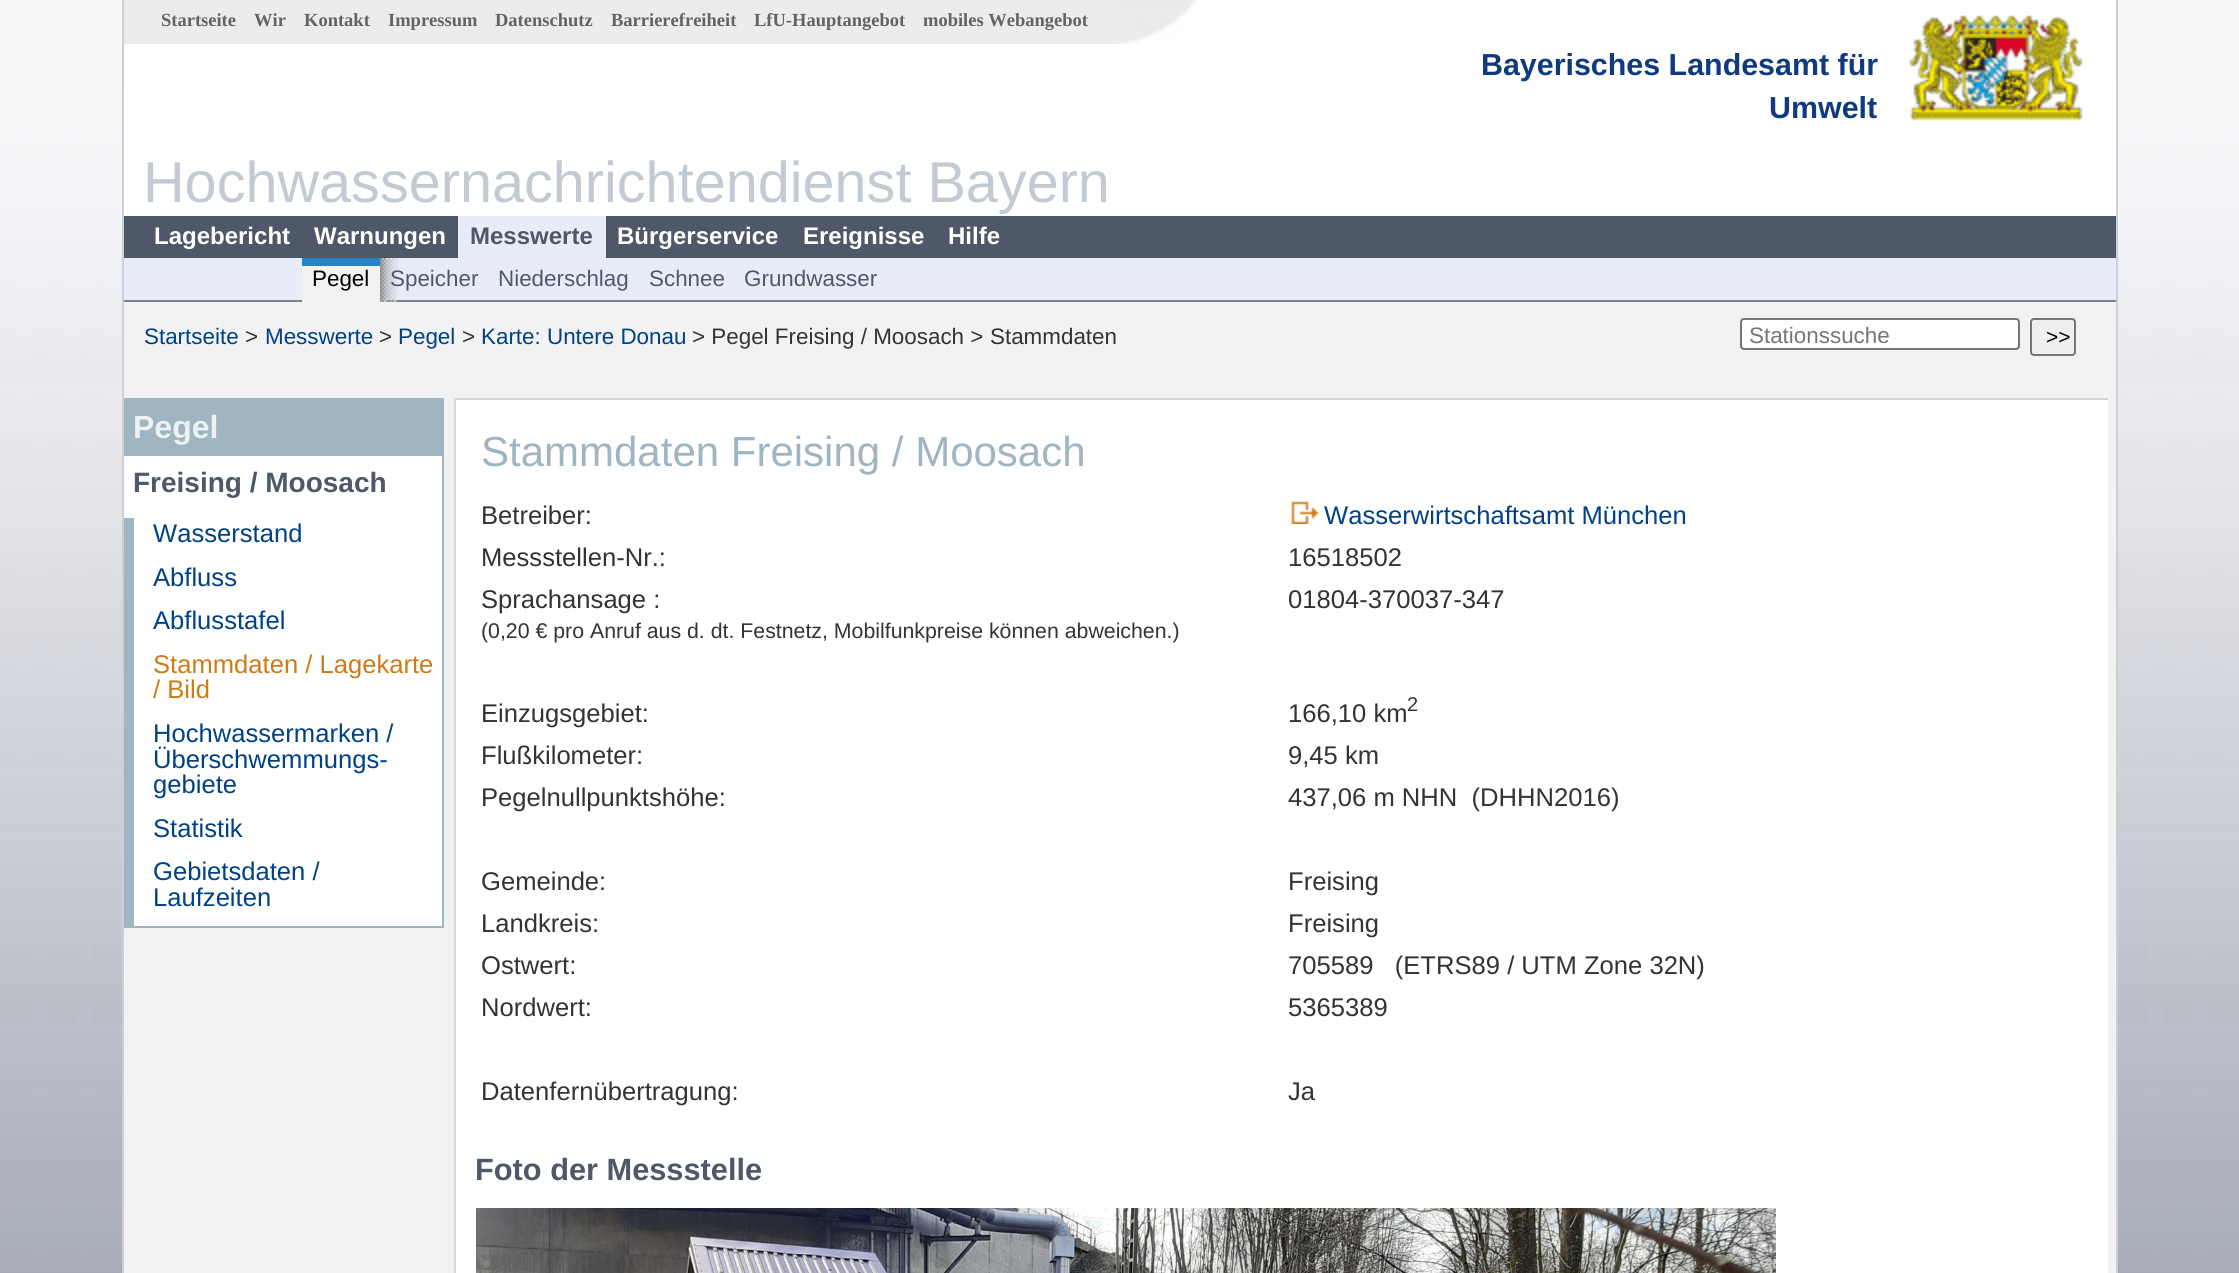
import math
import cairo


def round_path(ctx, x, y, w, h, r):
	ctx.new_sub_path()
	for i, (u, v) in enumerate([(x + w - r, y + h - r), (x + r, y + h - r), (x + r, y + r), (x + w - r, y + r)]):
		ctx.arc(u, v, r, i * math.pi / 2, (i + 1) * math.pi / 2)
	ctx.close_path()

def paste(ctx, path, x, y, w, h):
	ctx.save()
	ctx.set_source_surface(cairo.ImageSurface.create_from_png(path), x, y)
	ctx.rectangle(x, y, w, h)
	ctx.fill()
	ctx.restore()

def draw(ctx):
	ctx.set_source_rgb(1, 1, 1)
	ctx.paint()
	paste(ctx, 'media/1.png', 0, 0, 2239, 1273)
	ctx.set_source_rgb(1, 1, 1)
	ctx.rectangle(124, 0, 1992, 216)
	ctx.fill()
	ctx.set_source_rgb(0.808, 0.812, 0.831)
	ctx.rectangle(2116, 0, 2, 1273)
	ctx.rectangle(122, 0, 2, 1273)
	ctx.fill()
	paste(ctx, 'media/2.png', 1909, 15, 174, 106)
	ctx.set_source_rgb(0.922, 0.922, 0.922)
	ctx.rectangle(124, 0, 991, 44)
	ctx.fill()
	paste(ctx, 'media/3.png', 1115, 0, 81, 44)
	ctx.select_font_face('Liberation Serif', cairo.FONT_SLANT_NORMAL, cairo.FONT_WEIGHT_BOLD)
	ctx.set_font_size(18.5)
	ctx.set_source_rgb(0.388, 0.388, 0.388)
	for x, y, s in [
		(161, 26, 'Startseite'),
		(254, 26, 'Wir'),
		(304, 26, 'Kontakt'),
		(388, 26, 'Impressum'),
		(495, 26, 'Datenschutz'),
		(611, 26, 'Barrierefreiheit'),
		(754, 26, 'LfU-Hauptangebot'),
		(923, 26, 'mobiles Webangebot'),
	]:
		ctx.move_to(x, y)
		ctx.show_text(s)
	ctx.select_font_face('Liberation Sans', cairo.FONT_SLANT_NORMAL, cairo.FONT_WEIGHT_BOLD)
	ctx.set_font_size(30.4)
	ctx.set_source_rgb(0.059, 0.231, 0.486)
	ctx.move_to(1481, 75)
	ctx.show_text('Bayerisches Landesamt für')
	ctx.move_to(1769, 118)
	ctx.show_text('Umwelt')
	ctx.select_font_face('Liberation Sans')
	ctx.set_font_size(57.6)
	ctx.set_source_rgb(0.765, 0.792, 0.831)
	ctx.move_to(143, 202)
	ctx.show_text('Hochwassernachrichtendienst Bayern')
	ctx.set_source_rgb(0.31, 0.345, 0.412)
	ctx.rectangle(124, 216, 1992, 42)
	ctx.fill()
	ctx.select_font_face('Liberation Sans', cairo.FONT_SLANT_NORMAL, cairo.FONT_WEIGHT_BOLD)
	ctx.set_font_size(24)
	ctx.set_source_rgb(1, 1, 1)
	ctx.move_to(154, 244)
	ctx.show_text('Lagebericht')
	ctx.move_to(314, 244)
	ctx.show_text('Warnungen')
	ctx.set_source_rgb(0.906, 0.925, 0.969)
	ctx.rectangle(458, 216, 148, 42)
	ctx.fill()
	ctx.set_source_rgb(0.31, 0.345, 0.412)
	ctx.move_to(470, 244)
	ctx.show_text('Messwerte')
	ctx.set_source_rgb(1, 1, 1)
	for x, y, s in [
		(617, 244, 'Bürgerservice'),
		(803, 244, 'Ereignisse'),
		(948, 244, 'Hilfe'),
	]:
		ctx.move_to(x, y)
		ctx.show_text(s)
	ctx.set_source_rgb(0.906, 0.925, 0.969)
	ctx.rectangle(124, 258, 1992, 42)
	ctx.fill()
	ctx.set_source_rgb(0.478, 0.51, 0.569)
	ctx.rectangle(124, 300, 1992, 2)
	ctx.fill()
	ctx.set_source_rgb(0.949, 0.949, 0.949)
	ctx.rectangle(302, 266, 78, 36)
	ctx.fill()
	ctx.set_source_rgb(0.141, 0.518, 0.776)
	ctx.rectangle(302, 258, 78, 8)
	ctx.fill()
	ctx.select_font_face('Liberation Sans')
	ctx.set_font_size(22.4)
	ctx.set_source_rgb(0, 0, 0)
	ctx.move_to(312, 286)
	ctx.show_text('Pegel')
	paste(ctx, 'media/4.png', 380, 258, 19, 44)
	ctx.set_source_rgb(0.31, 0.345, 0.412)
	for x, y, s in [
		(390, 286, 'Speicher'),
		(498, 286, 'Niederschlag'),
		(649, 286, 'Schnee'),
		(744, 286, 'Grundwasser'),
	]:
		ctx.move_to(x, y)
		ctx.show_text(s)
	ctx.set_source_rgb(0.949, 0.949, 0.949)
	ctx.rectangle(124, 302, 1992, 971)
	ctx.fill()
	ctx.set_source_rgb(0, 0.255, 0.522)
	ctx.move_to(144, 344)
	ctx.show_text('Startseite')
	ctx.set_source_rgb(0.2, 0.2, 0.2)
	ctx.move_to(245, 344)
	ctx.show_text('>')
	ctx.set_source_rgb(0, 0.255, 0.522)
	ctx.move_to(265, 344)
	ctx.show_text('Messwerte')
	ctx.set_source_rgb(0.2, 0.2, 0.2)
	ctx.move_to(379, 344)
	ctx.show_text('>')
	ctx.set_source_rgb(0, 0.255, 0.522)
	ctx.move_to(398, 344)
	ctx.show_text('Pegel')
	ctx.set_source_rgb(0.2, 0.2, 0.2)
	ctx.move_to(462, 344)
	ctx.show_text('>')
	ctx.set_source_rgb(0, 0.255, 0.522)
	ctx.move_to(481, 344)
	ctx.show_text('Karte: Untere Donau')
	ctx.set_source_rgb(0.2, 0.2, 0.2)
	ctx.move_to(692, 344)
	ctx.show_text('> Pegel Freising / Moosach >')
	ctx.move_to(990, 344)
	ctx.show_text('Stammdaten')
	ctx.set_source_rgb(1, 1, 1)
	round_path(ctx, 1741, 319, 278, 30, 3)
	ctx.fill_preserve()
	ctx.set_source_rgb(0.463, 0.463, 0.463)
	ctx.stroke()
	ctx.set_source_rgb(0.459, 0.459, 0.459)
	ctx.move_to(1749, 343)
	ctx.show_text('Stationssuche')
	ctx.set_source_rgb(0.937, 0.937, 0.937)
	round_path(ctx, 2031, 319, 44, 36, 3)
	ctx.fill_preserve()
	ctx.set_source_rgb(0.463, 0.463, 0.463)
	ctx.stroke()
	ctx.set_font_size(21)
	ctx.set_source_rgb(0, 0, 0)
	ctx.move_to(2046, 344)
	ctx.show_text('>>')
	ctx.set_source_rgb(1, 1, 1)
	ctx.rectangle(124, 456, 318, 470)
	ctx.fill()
	ctx.set_source_rgb(0.624, 0.71, 0.757)
	ctx.rectangle(124, 398, 320, 2)
	ctx.rectangle(442, 398, 2, 530)
	ctx.rectangle(124, 926, 320, 2)
	ctx.rectangle(124, 400, 318, 56)
	ctx.fill()
	ctx.select_font_face('Liberation Sans', cairo.FONT_SLANT_NORMAL, cairo.FONT_WEIGHT_BOLD)
	ctx.set_font_size(32)
	ctx.set_source_rgb(0.929, 0.945, 0.953)
	ctx.move_to(133, 438)
	ctx.show_text('Pegel')
	ctx.set_font_size(28)
	ctx.set_source_rgb(0.31, 0.345, 0.412)
	ctx.move_to(133, 492)
	ctx.show_text('Freising / Moosach')
	ctx.set_source_rgb(0.624, 0.71, 0.757)
	ctx.rectangle(124, 518, 10, 408)
	ctx.fill()
	ctx.select_font_face('Liberation Sans')
	ctx.set_font_size(25.6)
	ctx.set_source_rgb(0, 0.255, 0.522)
	for x, y, s in [
		(153, 542, 'Wasserstand'),
		(153, 586, 'Abfluss'),
		(153, 629, 'Abflusstafel'),
	]:
		ctx.move_to(x, y)
		ctx.show_text(s)
	ctx.set_source_rgb(0.8, 0.482, 0.09)
	ctx.move_to(153, 673)
	ctx.show_text('Stammdaten / Lagekarte')
	ctx.move_to(153, 698)
	ctx.show_text('/ Bild')
	ctx.set_source_rgb(0, 0.255, 0.522)
	for x, y, s in [
		(153, 742, 'Hochwassermarken /'),
		(153, 768, 'Überschwemmungs-'),
		(153, 793, 'gebiete'),
		(153, 837, 'Statistik'),
		(153, 880, 'Gebietsdaten /'),
		(153, 906, 'Laufzeiten'),
	]:
		ctx.move_to(x, y)
		ctx.show_text(s)
	ctx.set_source_rgb(1, 1, 1)
	ctx.rectangle(456, 400, 1652, 873)
	ctx.fill()
	ctx.set_source_rgb(0.843, 0.843, 0.843)
	ctx.rectangle(454, 398, 1654, 2)
	ctx.rectangle(454, 398, 2, 875)
	ctx.fill()
	ctx.set_font_size(42)
	ctx.set_source_rgb(0.624, 0.71, 0.757)
	ctx.move_to(481, 466)
	ctx.show_text('Stammdaten Freising / Moosach')
	ctx.set_font_size(25.6)
	ctx.set_source_rgb(0.2, 0.2, 0.2)
	ctx.move_to(481, 524)
	ctx.show_text('Betreiber:')
	paste(ctx, 'media/5.png', 1291, 501, 28, 23)
	ctx.set_source_rgb(0, 0.255, 0.522)
	ctx.move_to(1324, 524)
	ctx.show_text('Wasserwirtschaftsamt München')
	ctx.set_source_rgb(0.2, 0.2, 0.2)
	for x, y, s in [
		(481, 566, 'Messstellen-Nr.:'),
		(1288, 566, '16518502'),
		(481, 608, 'Sprachansage :'),
	]:
		ctx.move_to(x, y)
		ctx.show_text(s)
	ctx.set_font_size(21.3)
	ctx.move_to(481, 638)
	ctx.show_text('(0,20 € pro Anruf aus d. dt. Festnetz, Mobilfunkpreise können abweichen.)')
	ctx.set_font_size(25.6)
	for x, y, s in [
		(1288, 608, '01804-370037-347'),
		(481, 722, 'Einzugsgebiet:'),
		(1288, 722, '166,10 km'),
	]:
		ctx.move_to(x, y)
		ctx.show_text(s)
	ctx.set_font_size(20)
	ctx.move_to(1407, 711)
	ctx.show_text('2')
	ctx.set_font_size(25.6)
	for x, y, s in [
		(481, 764, 'Flußkilometer:'),
		(1288, 764, '9,45 km'),
		(481, 806, 'Pegelnullpunktshöhe:'),
		(1288, 806, '437,06 m NHN  (DHHN2016)'),
		(481, 890, 'Gemeinde:'),
		(1288, 890, 'Freising'),
		(481, 932, 'Landkreis:'),
		(1288, 932, 'Freising'),
		(481, 974, 'Ostwert:'),
		(1288, 974, '705589   (ETRS89 / UTM Zone 32N)'),
		(481, 1016, 'Nordwert:'),
		(1288, 1016, '5365389'),
		(481, 1100, 'Datenfernübertragung:'),
		(1288, 1100, 'Ja'),
	]:
		ctx.move_to(x, y)
		ctx.show_text(s)
	ctx.select_font_face('Liberation Sans', cairo.FONT_SLANT_NORMAL, cairo.FONT_WEIGHT_BOLD)
	ctx.set_font_size(30.75)
	ctx.set_source_rgb(0.31, 0.345, 0.412)
	ctx.move_to(475, 1180)
	ctx.show_text('Foto der Messstelle')
	paste(ctx, 'media/6.png', 476, 1208, 1300, 65)


surface = cairo.ImageSurface(cairo.FORMAT_RGB24, 2239, 1273)
ctx = cairo.Context(surface)
options = cairo.FontOptions()
options.set_hint_metrics(cairo.HINT_METRICS_OFF)
options.set_hint_style(cairo.HINT_STYLE_NONE)
ctx.set_font_options(options)
ctx.set_miter_limit(4)
draw(ctx)
surface.write_to_png('image.png')
